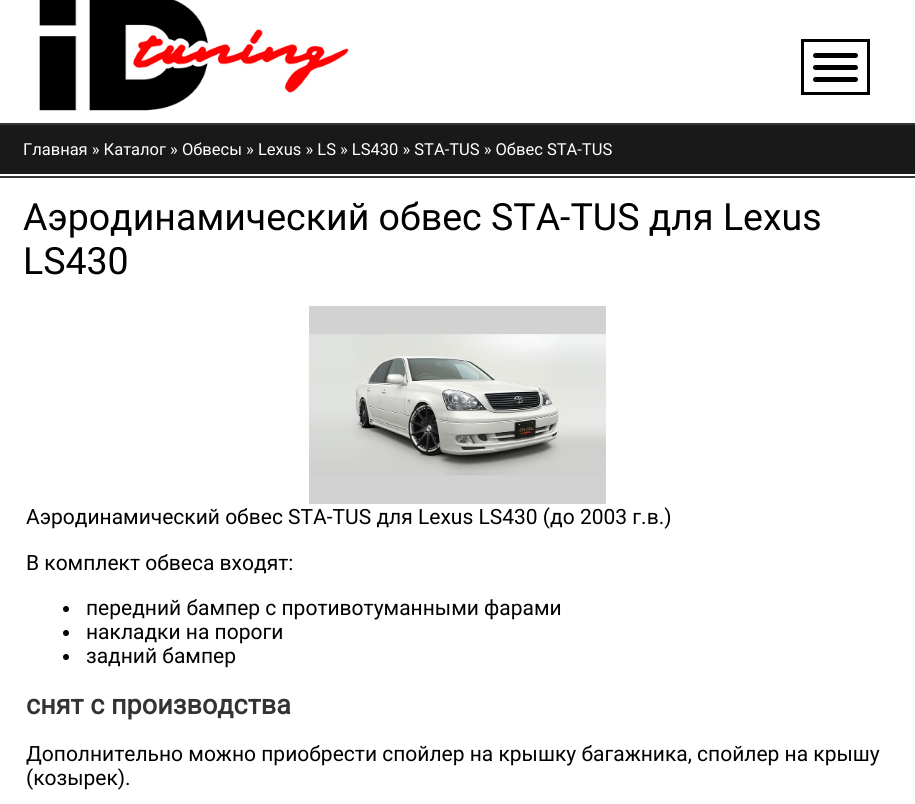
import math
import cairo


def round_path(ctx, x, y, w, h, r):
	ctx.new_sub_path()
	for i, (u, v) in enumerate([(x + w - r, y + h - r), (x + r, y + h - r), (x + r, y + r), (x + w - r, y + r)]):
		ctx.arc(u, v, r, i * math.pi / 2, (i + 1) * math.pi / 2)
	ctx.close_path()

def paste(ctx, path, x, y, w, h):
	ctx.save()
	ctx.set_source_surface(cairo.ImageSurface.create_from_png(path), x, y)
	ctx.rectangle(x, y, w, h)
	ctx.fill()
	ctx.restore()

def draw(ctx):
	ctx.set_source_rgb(1, 1, 1)
	ctx.paint()
	ctx.set_source_rgb(0.212, 0.212, 0.212)
	ctx.rectangle(0, 123, 915, 2)
	ctx.fill()
	paste(ctx, 'media/1.png', 39, 0, 311, 111)
	ctx.rectangle(802.5, 40.5, 66, 53)
	ctx.set_source_rgb(0, 0, 0)
	ctx.set_line_width(3)
	ctx.stroke()
	round_path(ctx, 813, 53, 45, 5, 2.5)
	ctx.fill()
	round_path(ctx, 813, 65, 45, 5, 2.5)
	ctx.fill()
	round_path(ctx, 813, 77, 45, 5, 2.5)
	ctx.fill()
	ctx.set_source_rgb(0.098, 0.098, 0.098)
	ctx.rectangle(0, 125, 915, 49)
	ctx.fill()
	ctx.select_font_face('Roboto')
	ctx.set_font_size(16.5)
	ctx.set_source_rgb(1, 1, 1)
	ctx.move_to(23, 155)
	ctx.show_text('Главная » Каталог » Обвесы » Lexus » LS » LS430 » STA-TUS » Обвес STA-TUS')
	ctx.set_source_rgb(0.212, 0.212, 0.212)
	ctx.rectangle(0, 176, 915, 2)
	ctx.fill()
	ctx.set_font_size(37.5)
	ctx.set_source_rgb(0, 0, 0)
	ctx.move_to(23, 230)
	ctx.show_text('Аэродинамический обвес STA-TUS для Lexus')
	ctx.move_to(23, 274)
	ctx.show_text('LS430')
	paste(ctx, 'media/2.png', 309, 306, 297, 198)
	ctx.set_font_size(21)
	ctx.move_to(26, 524)
	ctx.show_text('Аэродинамический обвес STA-TUS для Lexus LS430 (до 2003 г.в.)')
	ctx.move_to(26, 570)
	ctx.show_text('В комплект обвеса входят:')
	ctx.new_path()
	ctx.arc(66, 609, 3, 0, 2 * math.pi)
	ctx.fill()
	ctx.move_to(86, 615)
	ctx.show_text('передний бампер с противотуманными фарами')
	ctx.new_path()
	ctx.arc(66, 633, 3, 0, 2 * math.pi)
	ctx.fill()
	ctx.move_to(86, 639)
	ctx.show_text('накладки на пороги')
	ctx.new_path()
	ctx.arc(66, 657, 3, 0, 2 * math.pi)
	ctx.fill()
	ctx.move_to(86, 663)
	ctx.show_text('задний бампер')
	ctx.select_font_face('Roboto', cairo.FONT_SLANT_NORMAL, cairo.FONT_WEIGHT_BOLD)
	ctx.set_font_size(27)
	ctx.set_source_rgb(0.2, 0.2, 0.2)
	ctx.move_to(26, 714)
	ctx.show_text('снят с производства')
	ctx.select_font_face('Roboto')
	ctx.set_font_size(21)
	ctx.set_source_rgb(0, 0, 0)
	ctx.move_to(26, 761)
	ctx.show_text('Дополнительно можно приобрести спойлер на крышку багажника, спойлер на крышу')
	ctx.move_to(26, 785)
	ctx.show_text('(козырек).')


surface = cairo.ImageSurface(cairo.FORMAT_RGB24, 915, 804)
ctx = cairo.Context(surface)
options = cairo.FontOptions()
options.set_hint_metrics(cairo.HINT_METRICS_OFF)
options.set_hint_style(cairo.HINT_STYLE_NONE)
ctx.set_font_options(options)
ctx.set_miter_limit(4)
draw(ctx)
surface.write_to_png('image.png')
